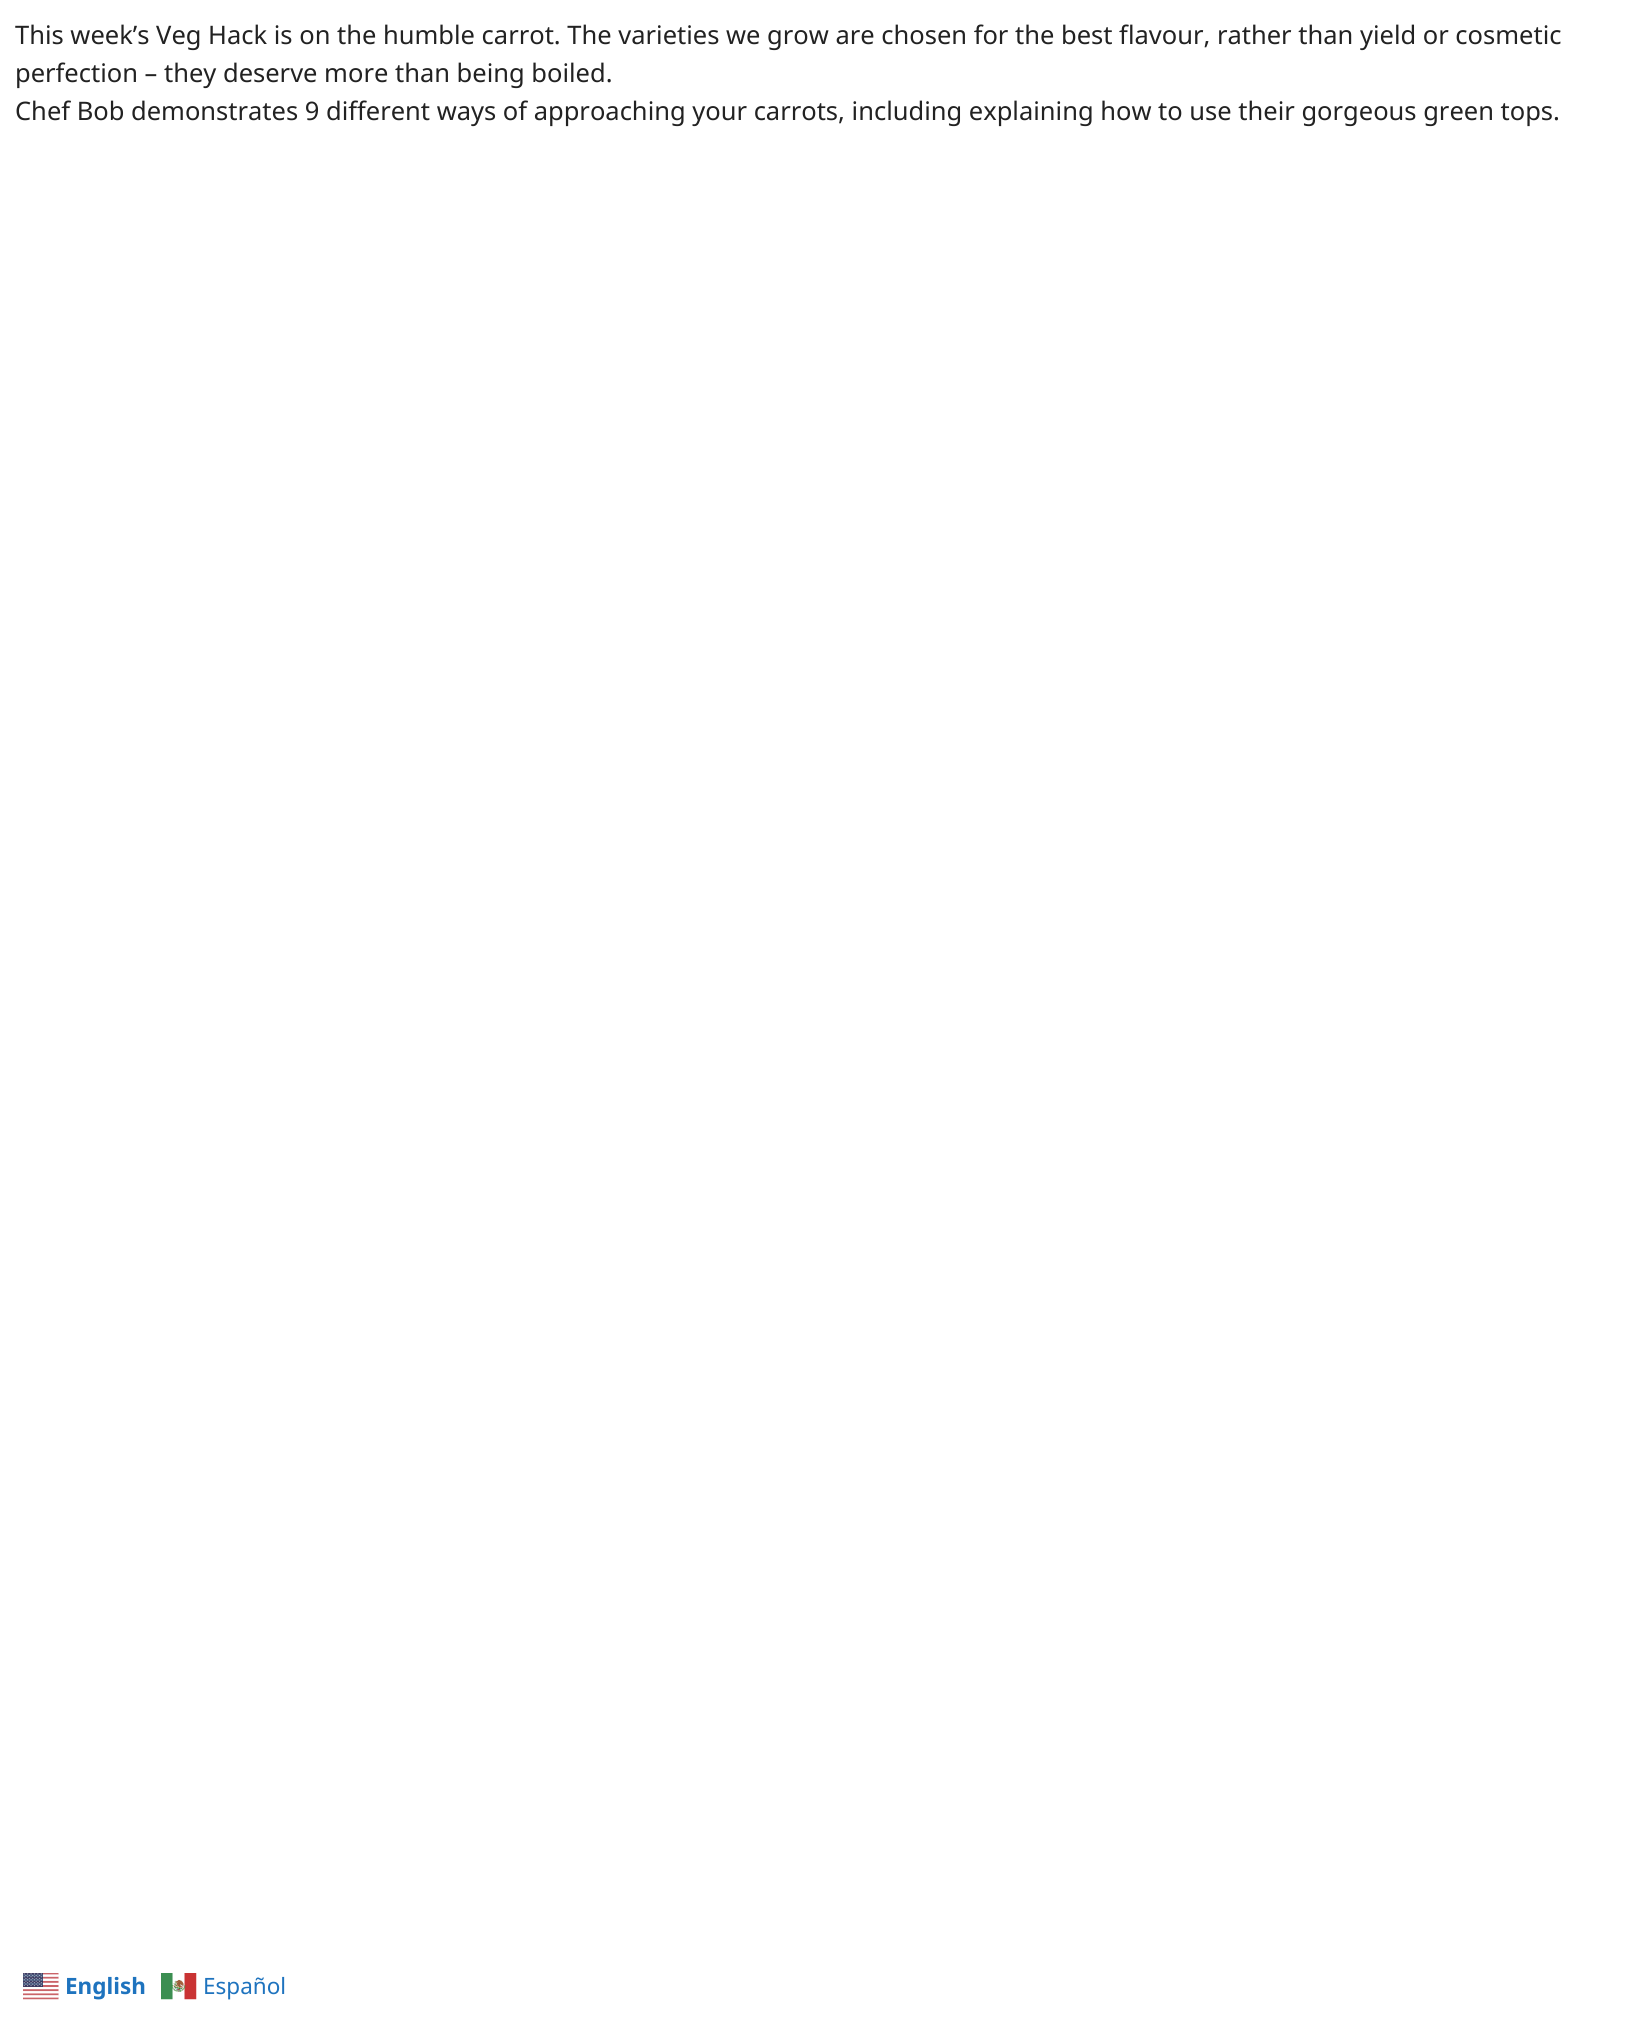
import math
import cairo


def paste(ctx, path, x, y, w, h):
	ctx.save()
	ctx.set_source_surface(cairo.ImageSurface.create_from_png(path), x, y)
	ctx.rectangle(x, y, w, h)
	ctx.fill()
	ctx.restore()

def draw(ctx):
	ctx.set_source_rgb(1, 1, 1)
	ctx.paint()
	ctx.select_font_face('Noto Sans')
	ctx.set_font_size(25.5)
	ctx.set_source_rgb(0.133, 0.133, 0.133)
	for x, y, s in [
		(15, 44, 'This week’s Veg Hack is on the humble carrot. The varieties we grow are chosen for the best flavour, rather than yield or cosmetic'),
		(15, 82, 'perfection – they deserve more than being boiled.'),
		(15, 120, 'Chef Bob demonstrates 9 different ways of approaching your carrots, including explaining how to use their gorgeous green tops.'),
	]:
		ctx.move_to(x, y)
		ctx.show_text(s)
	paste(ctx, 'media/1.png', 23, 1973, 36, 27)
	ctx.select_font_face('Noto Sans', cairo.FONT_SLANT_NORMAL, cairo.FONT_WEIGHT_BOLD)
	ctx.set_font_size(22.5)
	ctx.set_source_rgb(0.118, 0.451, 0.745)
	ctx.move_to(65, 1994)
	ctx.show_text('English')
	paste(ctx, 'media/2.png', 161, 1973, 36, 27)
	ctx.select_font_face('Noto Sans')
	ctx.move_to(203, 1994)
	ctx.show_text('Español')


surface = cairo.ImageSurface(cairo.FORMAT_RGB24, 1646, 2025)
ctx = cairo.Context(surface)
options = cairo.FontOptions()
options.set_hint_metrics(cairo.HINT_METRICS_OFF)
options.set_hint_style(cairo.HINT_STYLE_NONE)
ctx.set_font_options(options)
ctx.set_miter_limit(4)
draw(ctx)
surface.write_to_png('image.png')
